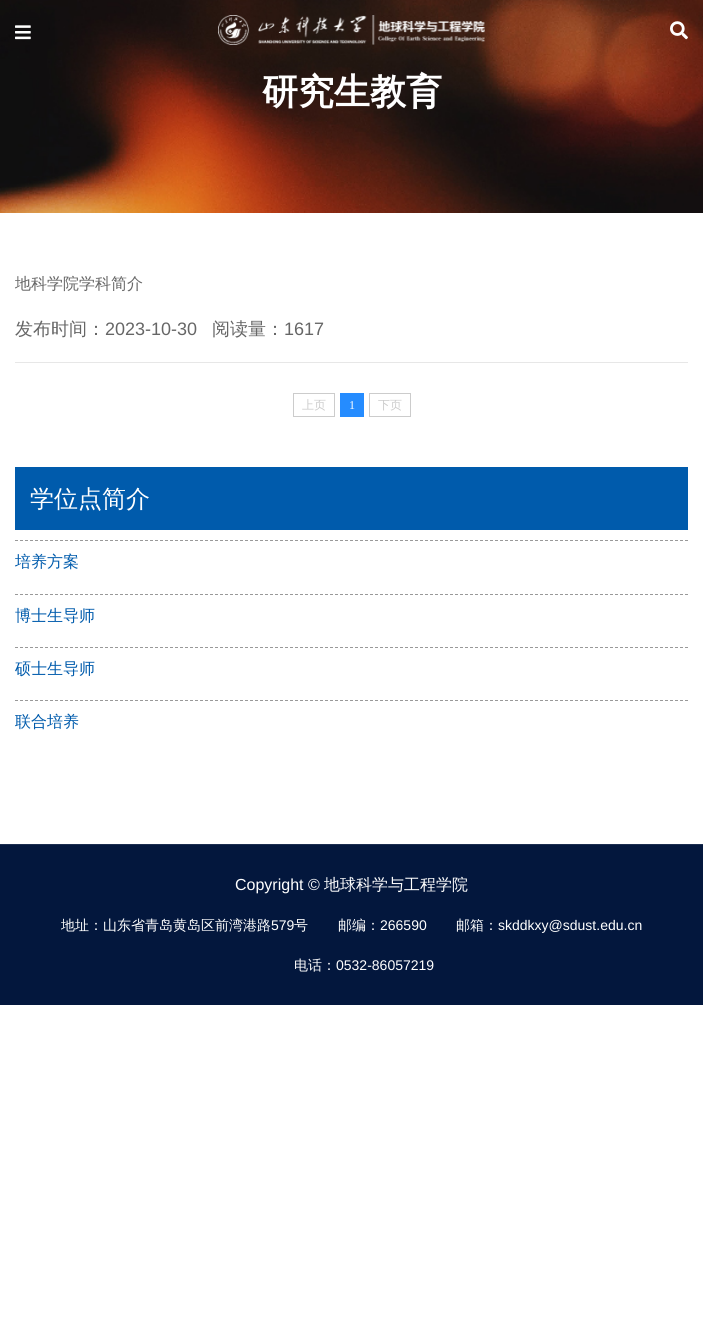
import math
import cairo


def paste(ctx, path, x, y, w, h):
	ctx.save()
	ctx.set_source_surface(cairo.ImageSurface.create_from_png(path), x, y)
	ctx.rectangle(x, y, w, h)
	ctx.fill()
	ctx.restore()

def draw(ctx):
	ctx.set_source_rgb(1, 1, 1)
	ctx.paint()
	paste(ctx, 'media/4.png', 0, 0, 703, 213)
	paste(ctx, 'media/1.png', 15, 25, 16, 15)
	paste(ctx, 'media/2.png', 218, 15, 267, 30)
	paste(ctx, 'media/3.png', 670, 21, 18, 19)
	ctx.select_font_face('WenQuanYi Zen Hei', cairo.FONT_SLANT_NORMAL, cairo.FONT_WEIGHT_BOLD)
	ctx.set_font_size(36)
	ctx.set_source_rgb(1, 1, 1)
	ctx.move_to(262, 104)
	ctx.show_text('研究生教育')
	ctx.select_font_face('WenQuanYi Zen Hei Medium')
	ctx.set_font_size(16)
	ctx.set_source_rgb(0.4, 0.4, 0.4)
	ctx.move_to(15, 289)
	ctx.show_text('地科学院学科简介')
	ctx.set_source_rgb(0.906, 0.906, 0.906)
	ctx.rectangle(15, 362, 673, 1)
	ctx.fill()
	ctx.set_font_size(18)
	ctx.set_source_rgb(0.4, 0.4, 0.4)
	ctx.move_to(15, 335)
	ctx.show_text('发布时间：')
	ctx.select_font_face('Liberation Sans')
	ctx.move_to(105, 335)
	ctx.show_text('2023-10-30')
	ctx.select_font_face('WenQuanYi Zen Hei Medium')
	ctx.move_to(212, 335)
	ctx.show_text('阅读量：')
	ctx.select_font_face('Liberation Sans')
	ctx.move_to(284, 335)
	ctx.show_text('1617')
	ctx.rectangle(293.5, 393.5, 41, 23)
	ctx.set_source_rgb(0.8, 0.8, 0.8)
	ctx.set_line_width(1)
	ctx.stroke()
	ctx.select_font_face('WenQuanYi Zen Hei Medium')
	ctx.set_font_size(12)
	ctx.move_to(302, 409)
	ctx.show_text('上页')
	ctx.set_source_rgb(0.145, 0.549, 1)
	ctx.rectangle(340, 393, 24, 24)
	ctx.fill()
	ctx.select_font_face('Liberation Serif')
	ctx.set_source_rgb(1, 1, 1)
	ctx.move_to(349, 409)
	ctx.show_text('1')
	ctx.rectangle(369.5, 393.5, 41, 23)
	ctx.set_source_rgb(0.8, 0.8, 0.8)
	ctx.stroke()
	ctx.select_font_face('WenQuanYi Zen Hei Medium')
	ctx.move_to(378, 409)
	ctx.show_text('下页')
	ctx.new_path()
	ctx.move_to(15, 540.5)
	ctx.line_to(688, 540.5)
	ctx.set_source_rgb(0.6, 0.6, 0.6)
	ctx.set_dash([3, 2])
	ctx.stroke()
	ctx.set_source_rgb(0, 0.357, 0.675)
	ctx.rectangle(15, 467, 673, 63)
	ctx.fill()
	ctx.set_font_size(24)
	ctx.set_source_rgb(1, 1, 1)
	ctx.move_to(30, 507)
	ctx.show_text('学位点简介')
	ctx.new_path()
	ctx.move_to(15, 594.5)
	ctx.line_to(688, 594.5)
	ctx.set_source_rgb(0.6, 0.6, 0.6)
	ctx.stroke()
	ctx.set_font_size(16)
	ctx.set_source_rgb(0, 0.357, 0.675)
	ctx.move_to(15, 567)
	ctx.show_text('培养方案')
	ctx.new_path()
	ctx.move_to(15, 647.5)
	ctx.line_to(688, 647.5)
	ctx.set_source_rgb(0.6, 0.6, 0.6)
	ctx.stroke()
	ctx.set_source_rgb(0, 0.357, 0.675)
	ctx.move_to(15, 621)
	ctx.show_text('博士生导师')
	ctx.new_path()
	ctx.move_to(15, 700.5)
	ctx.line_to(688, 700.5)
	ctx.set_source_rgb(0.6, 0.6, 0.6)
	ctx.stroke()
	ctx.set_source_rgb(0, 0.357, 0.675)
	ctx.move_to(15, 674)
	ctx.show_text('硕士生导师')
	ctx.move_to(15, 727)
	ctx.show_text('联合培养')
	ctx.set_source_rgb(0.012, 0.09, 0.239)
	ctx.rectangle(0, 845, 703, 160)
	ctx.fill()
	ctx.set_source_rgb(0.11, 0.18, 0.314)
	ctx.rectangle(0, 844, 703, 1)
	ctx.fill()
	ctx.select_font_face('Liberation Sans')
	ctx.set_source_rgb(1, 1, 1)
	ctx.move_to(235, 890)
	ctx.show_text('Copyright ©')
	ctx.select_font_face('WenQuanYi Zen Hei Medium')
	ctx.move_to(324, 890)
	ctx.show_text('地球科学与工程学院')
	ctx.set_font_size(14)
	ctx.move_to(61, 930)
	ctx.show_text('地址：山东省青岛黄岛区前湾港路')
	ctx.select_font_face('Liberation Sans')
	ctx.move_to(271, 930)
	ctx.show_text('579')
	ctx.select_font_face('WenQuanYi Zen Hei Medium')
	ctx.move_to(294, 930)
	ctx.show_text('号')
	ctx.move_to(338, 930)
	ctx.show_text('邮编：')
	ctx.select_font_face('Liberation Sans')
	ctx.move_to(380, 930)
	ctx.show_text('266590')
	ctx.select_font_face('WenQuanYi Zen Hei Medium')
	ctx.move_to(456, 930)
	ctx.show_text('邮箱：')
	ctx.select_font_face('Liberation Sans')
	ctx.move_to(498, 930)
	ctx.show_text('skddkxy@sdust.edu.cn')
	ctx.select_font_face('WenQuanYi Zen Hei Medium')
	ctx.move_to(294, 970)
	ctx.show_text('电话：')
	ctx.select_font_face('Liberation Sans')
	ctx.move_to(336, 970)
	ctx.show_text('0532-86057219')


surface = cairo.ImageSurface(cairo.FORMAT_RGB24, 703, 1319)
ctx = cairo.Context(surface)
options = cairo.FontOptions()
options.set_hint_metrics(cairo.HINT_METRICS_OFF)
options.set_hint_style(cairo.HINT_STYLE_NONE)
ctx.set_font_options(options)
ctx.set_miter_limit(4)
draw(ctx)
surface.write_to_png('image.png')
